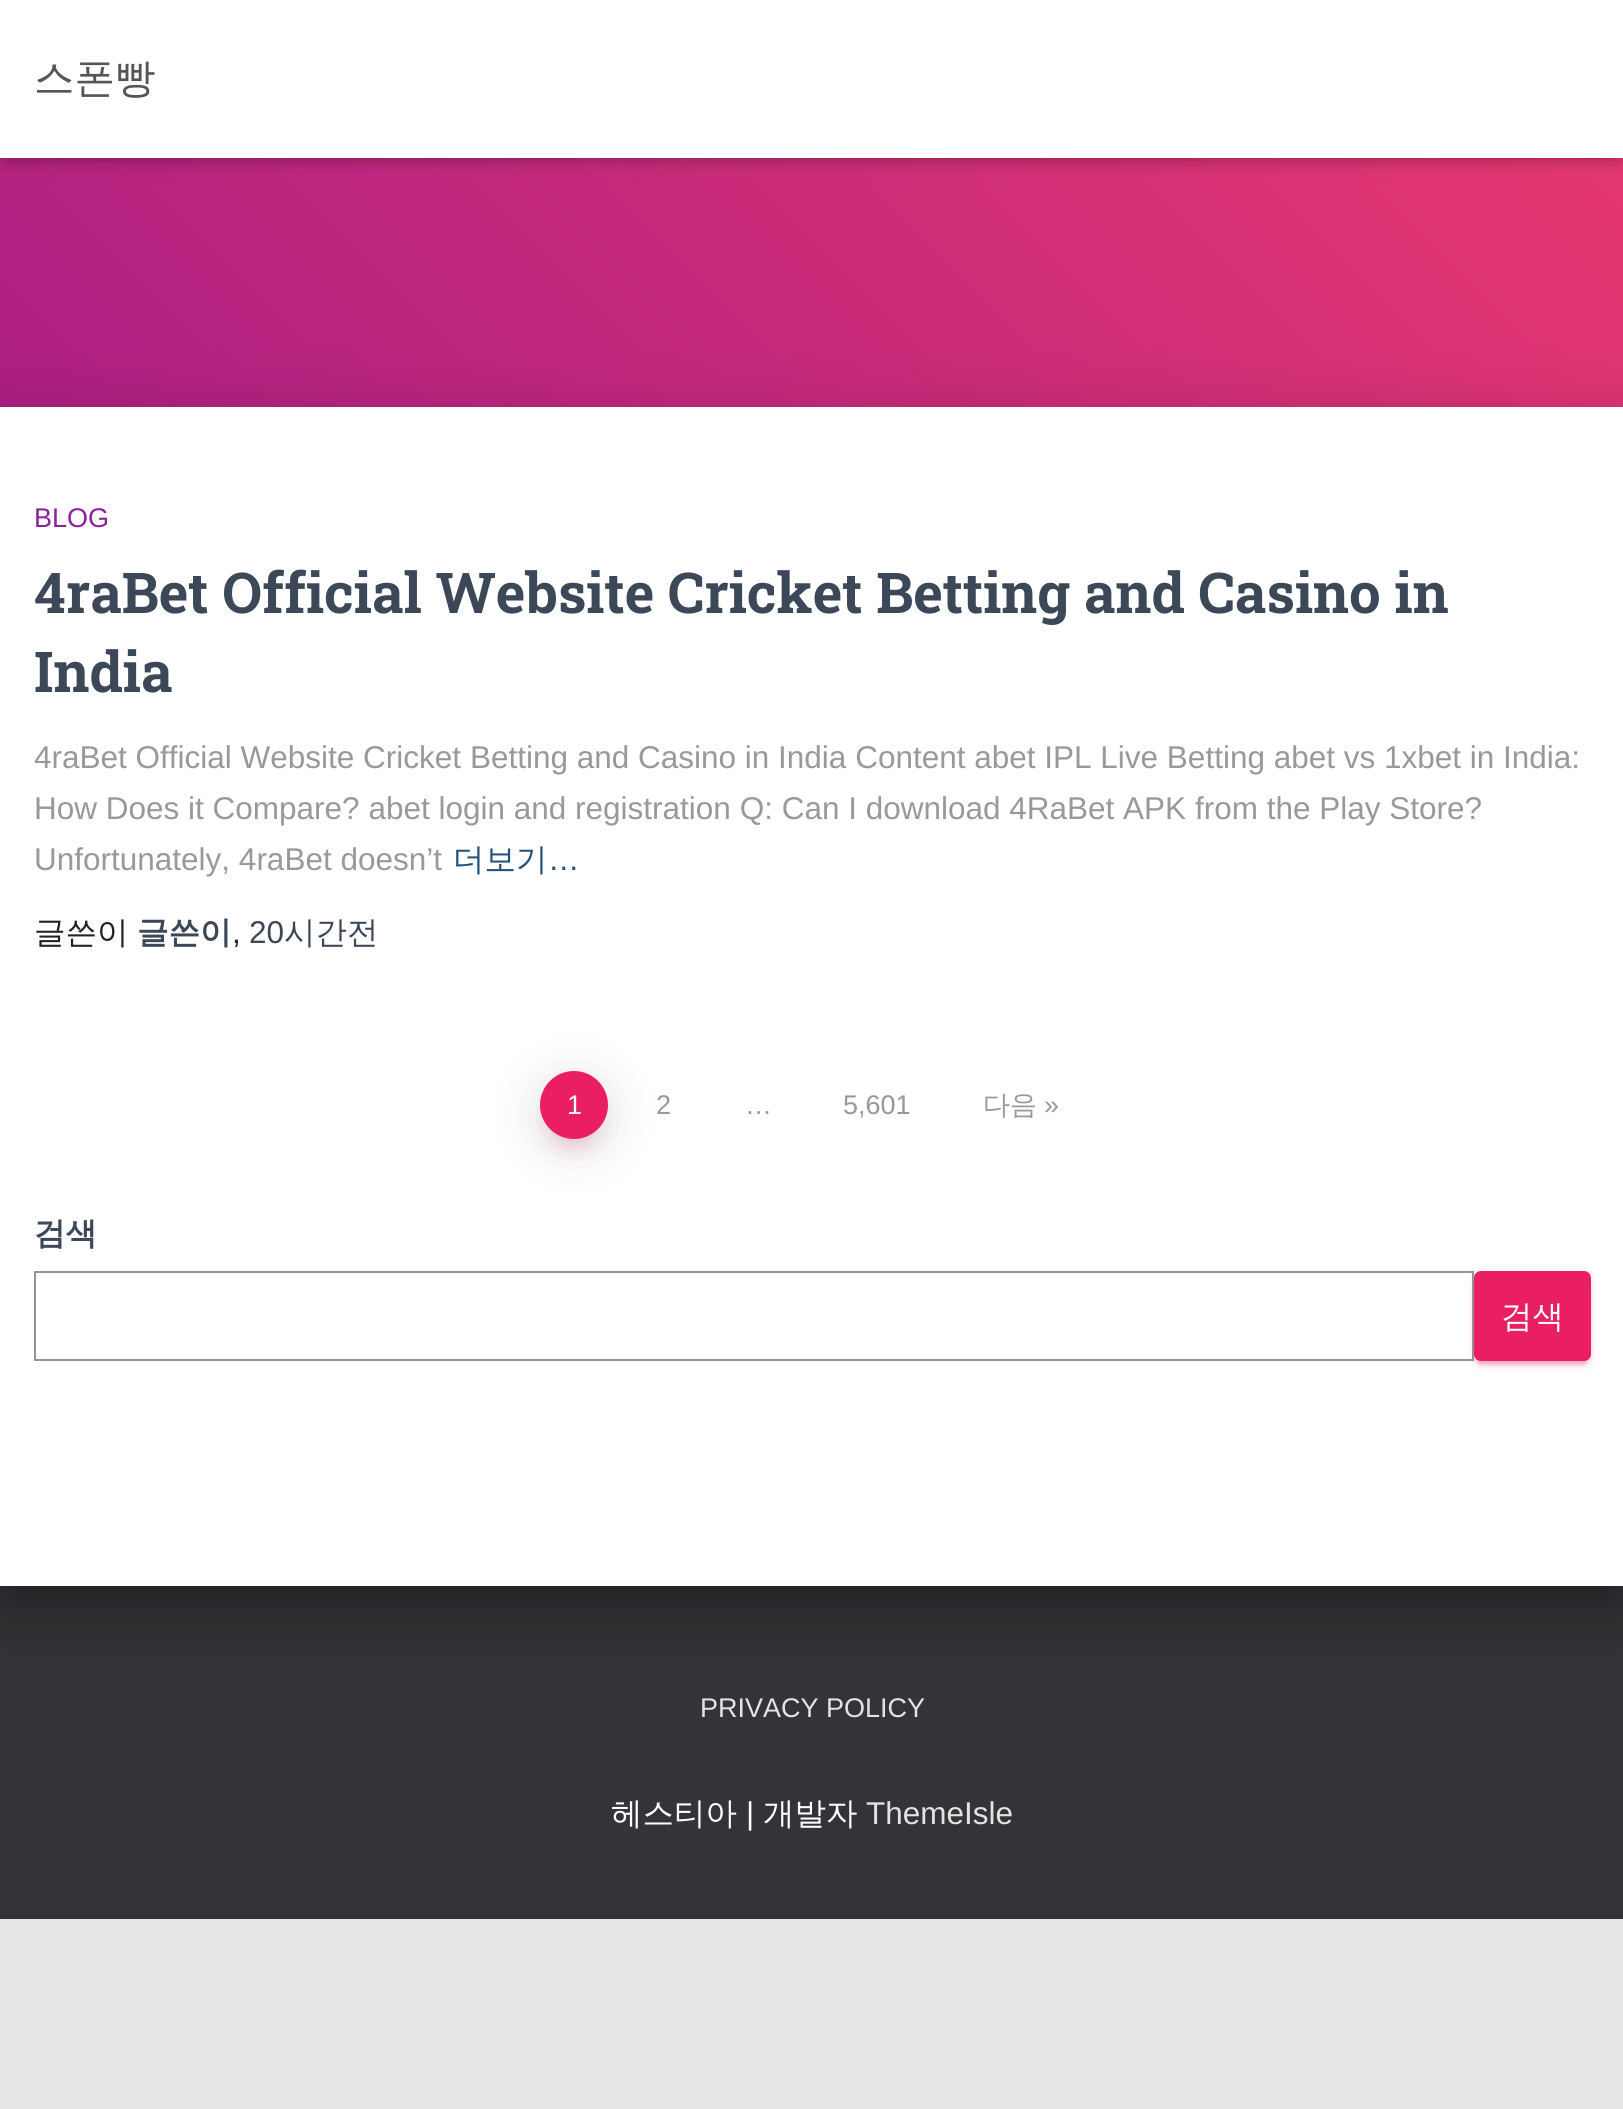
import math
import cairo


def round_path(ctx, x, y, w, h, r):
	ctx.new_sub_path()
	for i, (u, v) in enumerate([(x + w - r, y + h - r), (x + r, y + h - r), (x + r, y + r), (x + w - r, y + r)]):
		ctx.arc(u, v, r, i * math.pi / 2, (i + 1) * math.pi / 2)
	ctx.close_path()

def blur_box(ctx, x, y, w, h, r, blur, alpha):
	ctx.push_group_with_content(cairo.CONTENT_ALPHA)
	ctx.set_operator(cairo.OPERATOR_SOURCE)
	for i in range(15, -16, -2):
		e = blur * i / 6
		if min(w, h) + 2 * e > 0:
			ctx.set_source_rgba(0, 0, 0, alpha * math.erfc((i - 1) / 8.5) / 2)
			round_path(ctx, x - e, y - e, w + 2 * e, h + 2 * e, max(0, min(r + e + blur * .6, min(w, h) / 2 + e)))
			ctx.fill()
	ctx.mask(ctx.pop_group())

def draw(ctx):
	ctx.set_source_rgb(0.898, 0.898, 0.898)
	ctx.paint()
	gradient = cairo.LinearGradient(271, 813, 1354, -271)
	gradient.add_color_stop_rgba(0, 0.659, 0.114, 0.518, 1)
	gradient.add_color_stop_rgba(1, 0.918, 0.224, 0.435, 1)
	ctx.set_source(gradient)
	ctx.rectangle(0, 158, 1623, 249)
	ctx.fill()
	ctx.set_source_rgb(0, 0, 0)
	blur_box(ctx, 5, 14, 1615, 148, 0, 5.5, 0.1)
	blur_box(ctx, 0, 2, 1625, 158, 0, 11, 0.12)
	blur_box(ctx, 14, 16, 1597, 130, 0, 11, 0.42)
	ctx.set_source_rgb(1, 1, 1)
	ctx.rectangle(0, 0, 1623, 158)
	ctx.fill()
	ctx.select_font_face('WenQuanYi Zen Hei Medium')
	ctx.set_font_size(40.5)
	ctx.set_source_rgb(0.333, 0.333, 0.333)
	ctx.move_to(34, 92)
	ctx.show_text('스폰빵')
	ctx.set_source_rgb(0.196, 0.204, 0.216)
	ctx.rectangle(0, 1586, 1623, 333)
	ctx.fill()
	ctx.set_source_rgb(0, 0, 0)
	blur_box(ctx, 11, 437, 1602, 1156, 0, 11, 0.2)
	blur_box(ctx, -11, 410, 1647, 1201, 0, 34, 0.12)
	blur_box(ctx, -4, 439, 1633, 1188, 0, 27, 0.14)
	ctx.set_source_rgb(1, 1, 1)
	ctx.rectangle(0, 407, 1623, 1179)
	ctx.fill()
	ctx.select_font_face('Liberation Sans')
	ctx.set_font_size(27)
	ctx.set_source_rgb(0.537, 0.133, 0.608)
	ctx.move_to(34, 527)
	ctx.show_text('BLOG')
	ctx.select_font_face('Roboto Slab', cairo.FONT_SLANT_NORMAL, cairo.FONT_WEIGHT_BOLD)
	ctx.set_font_size(56.25)
	ctx.set_source_rgb(0.235, 0.282, 0.345)
	ctx.move_to(34, 613)
	ctx.show_text('4raBet Official Website Cricket Betting and Casino in')
	ctx.move_to(34, 692)
	ctx.show_text('India')
	ctx.select_font_face('Liberation Sans')
	ctx.set_font_size(31.5)
	ctx.set_source_rgb(0.6, 0.6, 0.6)
	for x, y, s in [
		(34, 768, '4raBet Official Website Cricket Betting and Casino in India Content abet IPL Live Betting abet vs 1xbet in India:'),
		(34, 819, 'How Does it Compare? abet login and registration Q: Can I download 4RaBet APK from the Play Store?'),
		(34, 870, 'Unfortunately, 4raBet doesn’t'),
	]:
		ctx.move_to(x, y)
		ctx.show_text(s)
	ctx.select_font_face('WenQuanYi Zen Hei Medium')
	ctx.set_source_rgb(0.137, 0.322, 0.486)
	ctx.move_to(453, 870)
	ctx.show_text('더보기')
	ctx.select_font_face('Liberation Sans')
	ctx.move_to(548, 870)
	ctx.show_text('…')
	ctx.select_font_face('WenQuanYi Zen Hei Medium')
	ctx.set_source_rgb(0.129, 0.129, 0.129)
	ctx.move_to(34, 943)
	ctx.show_text('글쓴이')
	ctx.select_font_face('WenQuanYi Zen Hei', cairo.FONT_SLANT_NORMAL, cairo.FONT_WEIGHT_BOLD)
	ctx.set_source_rgb(0.235, 0.282, 0.345)
	ctx.move_to(137, 943)
	ctx.show_text('글쓴이')
	ctx.select_font_face('Liberation Sans')
	ctx.set_source_rgb(0.129, 0.129, 0.129)
	ctx.move_to(232, 943)
	ctx.show_text(',')
	ctx.set_source_rgb(0.235, 0.282, 0.345)
	ctx.move_to(249, 943)
	ctx.show_text('20')
	ctx.select_font_face('WenQuanYi Zen Hei Medium')
	ctx.move_to(284, 943)
	ctx.show_text('시간전')
	ctx.set_source_rgb(0.914, 0.118, 0.388)
	blur_box(ctx, 551, 1100, 45, 45, 22.5, 11, 0.2)
	ctx.set_source_rgb(0, 0, 0)
	blur_box(ctx, 540, 1080, 68, 68, 34, 26, 0.12)
	ctx.set_source_rgb(0.914, 0.118, 0.388)
	ctx.arc(574, 1105, 34, 0, 2 * math.pi)
	ctx.fill()
	ctx.select_font_face('Liberation Sans')
	ctx.set_font_size(27)
	ctx.set_source_rgb(1, 1, 1)
	ctx.move_to(567, 1114)
	ctx.show_text('1')
	ctx.set_source_rgb(0.6, 0.6, 0.6)
	for x, y, s in [
		(656, 1114, '2'),
		(745, 1114, '…'),
		(843, 1114, '5,601'),
	]:
		ctx.move_to(x, y)
		ctx.show_text(s)
	ctx.select_font_face('WenQuanYi Zen Hei Medium')
	ctx.move_to(983, 1114)
	ctx.show_text('다음')
	ctx.select_font_face('Liberation Sans')
	ctx.move_to(1044, 1114)
	ctx.show_text('»')
	ctx.select_font_face('WenQuanYi Zen Hei', cairo.FONT_SLANT_NORMAL, cairo.FONT_WEIGHT_BOLD)
	ctx.set_font_size(31.5)
	ctx.set_source_rgb(0.235, 0.282, 0.345)
	ctx.move_to(34, 1244)
	ctx.show_text('검색')
	ctx.rectangle(35, 1272, 1438, 88)
	ctx.set_source_rgb(0.58, 0.58, 0.58)
	ctx.stroke()
	ctx.set_source_rgb(0.914, 0.118, 0.388)
	blur_box(ctx, 1474, 1274, 117, 90, 7, 5.5, 0.12)
	blur_box(ctx, 1478, 1283, 108, 81, 2, 1, 0.2)
	blur_box(ctx, 1474, 1276, 117, 90, 7, 2, 0.14)
	ctx.set_source_rgb(0.914, 0.118, 0.388)
	round_path(ctx, 1474, 1271, 117, 90, 7)
	ctx.fill()
	ctx.select_font_face('WenQuanYi Zen Hei Medium')
	ctx.set_source_rgb(1, 1, 1)
	ctx.move_to(1501, 1327)
	ctx.show_text('검색')
	ctx.select_font_face('Liberation Sans')
	ctx.set_font_size(27)
	ctx.set_source_rgb(0.886, 0.89, 0.89)
	ctx.move_to(700, 1717)
	ctx.show_text('PRIVACY POLICY')
	ctx.select_font_face('WenQuanYi Zen Hei Medium')
	ctx.set_font_size(31.5)
	ctx.set_source_rgb(1, 1, 1)
	ctx.move_to(611, 1824)
	ctx.show_text('헤스티아')
	ctx.select_font_face('Liberation Sans')
	ctx.move_to(746, 1824)
	ctx.show_text('|')
	ctx.select_font_face('WenQuanYi Zen Hei Medium')
	ctx.move_to(763, 1824)
	ctx.show_text('개발자')
	ctx.select_font_face('Liberation Sans')
	ctx.set_source_rgb(0.886, 0.89, 0.89)
	ctx.move_to(866, 1824)
	ctx.show_text('ThemeIsle')


surface = cairo.ImageSurface(cairo.FORMAT_RGB24, 1623, 2109)
ctx = cairo.Context(surface)
options = cairo.FontOptions()
options.set_hint_metrics(cairo.HINT_METRICS_OFF)
options.set_hint_style(cairo.HINT_STYLE_NONE)
ctx.set_font_options(options)
ctx.set_miter_limit(4)
draw(ctx)
surface.write_to_png('image.png')
